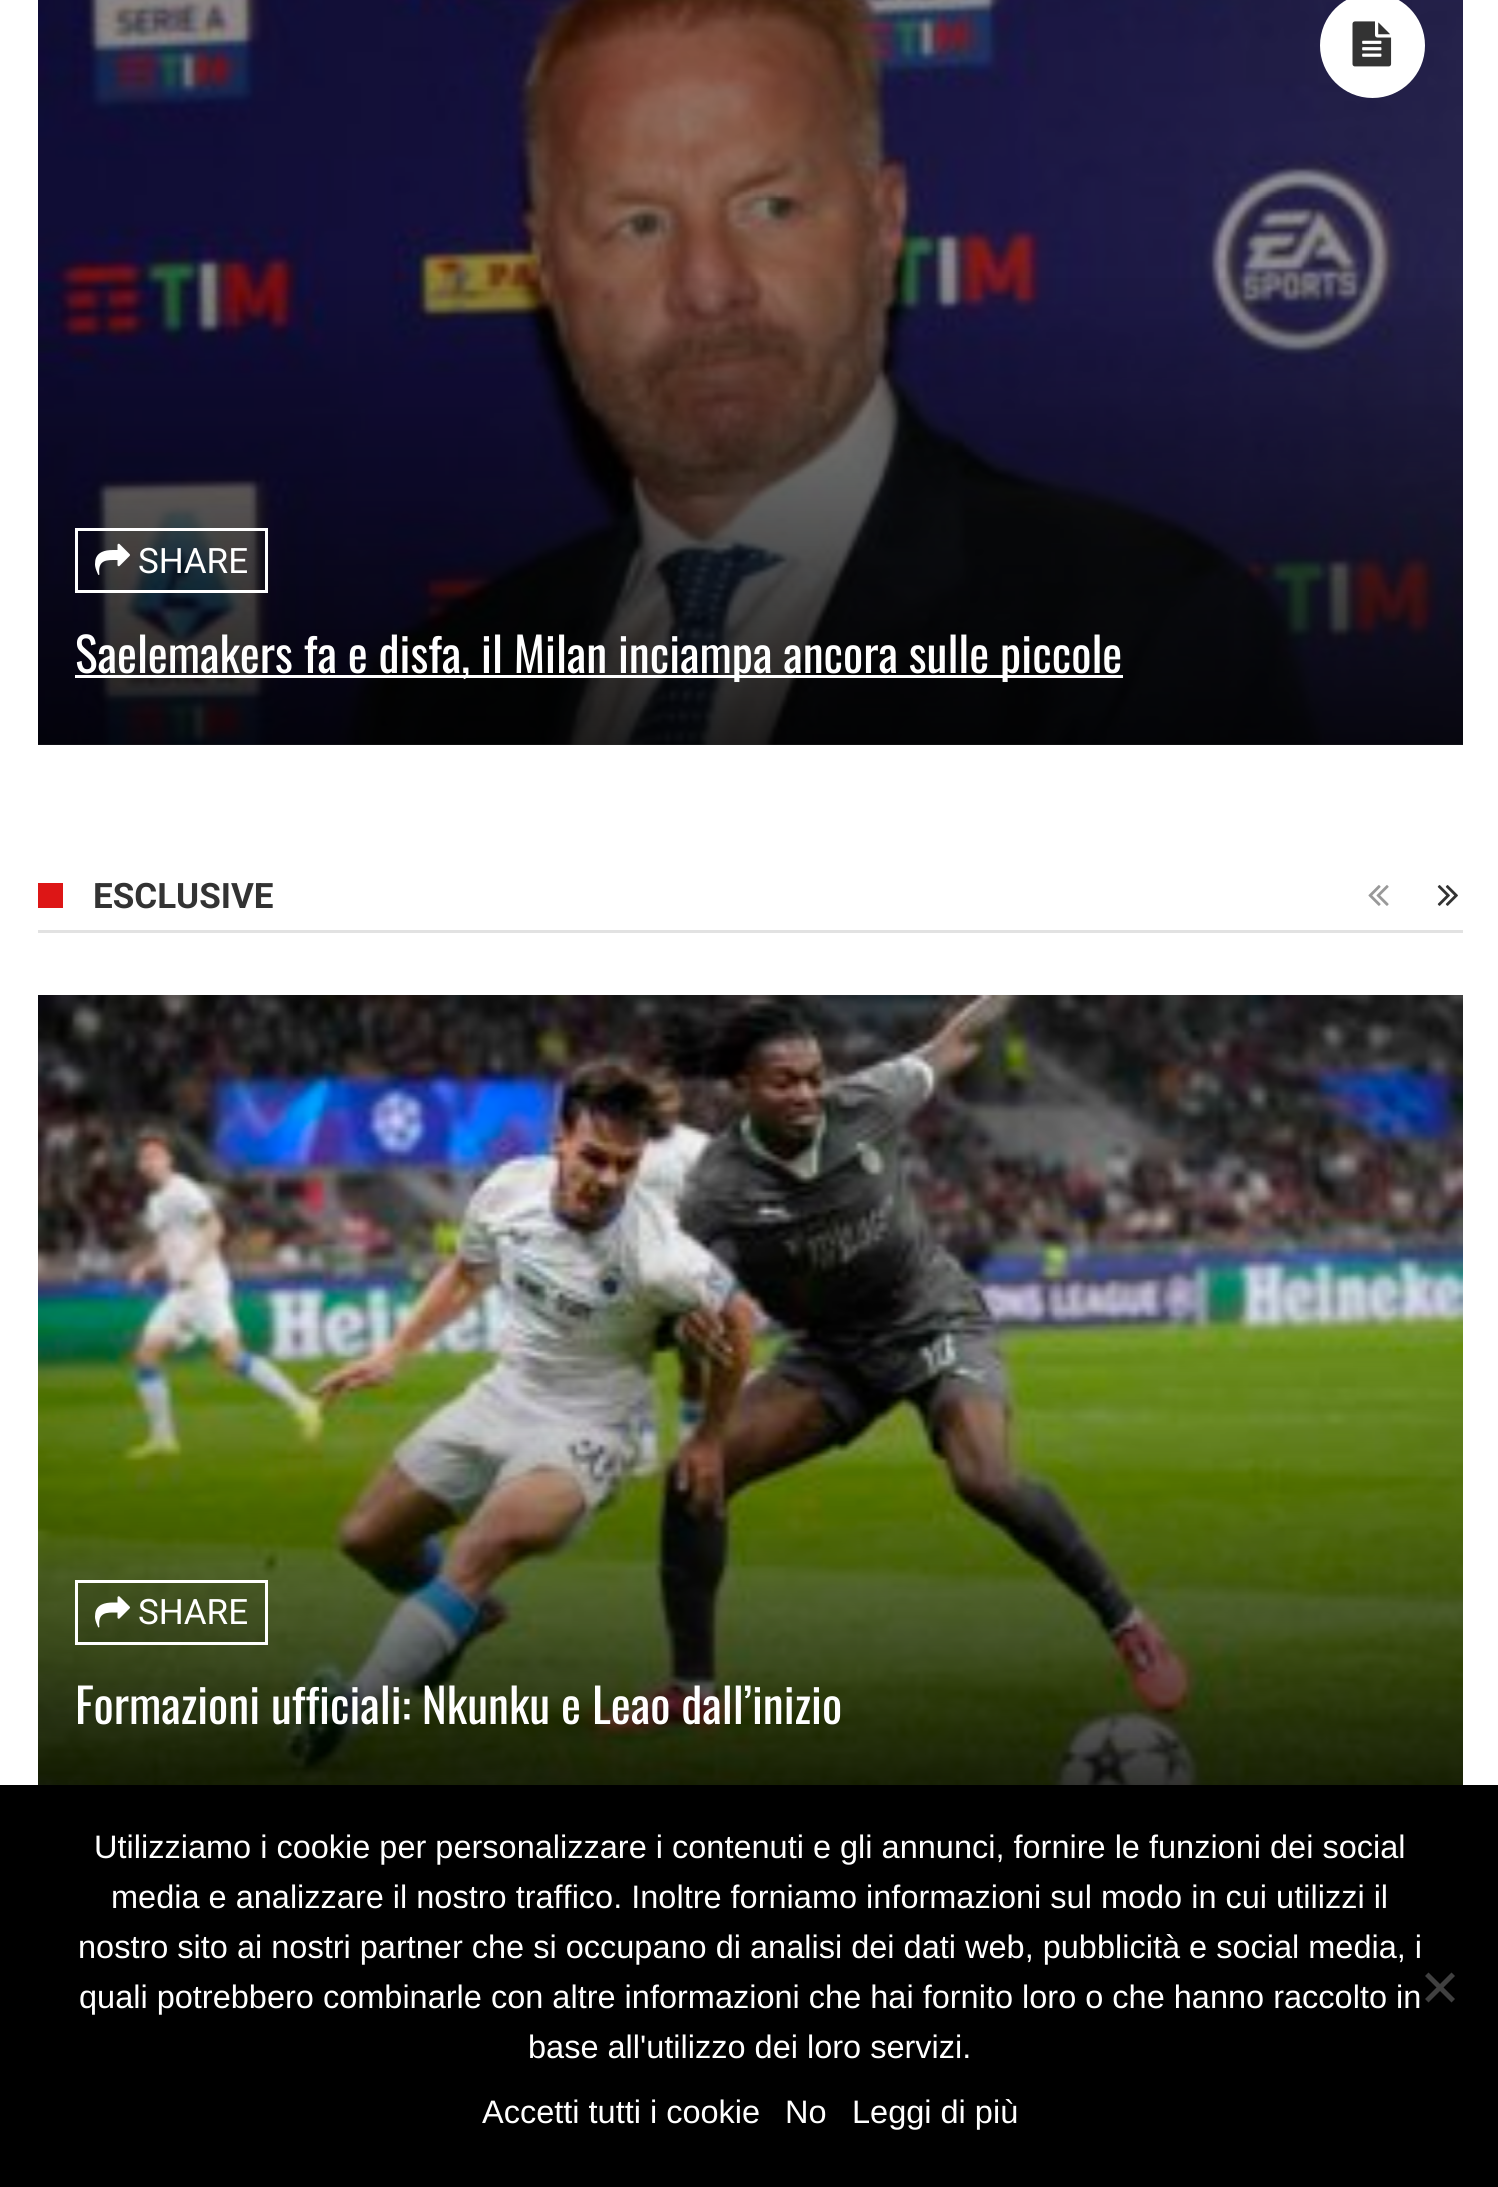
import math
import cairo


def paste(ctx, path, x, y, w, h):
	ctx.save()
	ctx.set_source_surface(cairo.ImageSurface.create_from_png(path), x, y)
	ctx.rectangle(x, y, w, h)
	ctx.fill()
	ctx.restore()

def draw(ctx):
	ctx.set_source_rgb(1, 1, 1)
	ctx.paint()
	paste(ctx, 'media/2.png', 38, 0, 1425, 745)
	ctx.set_source_rgb(1, 1, 1)
	ctx.arc(1372.5, 45.5, 52.5, 0, 2 * math.pi)
	ctx.fill()
	paste(ctx, 'media/1.png', 1352, 21, 40, 46)
	gradient = cairo.LinearGradient(750, 265, 750, 745)
	gradient.add_color_stop_rgba(0, 0, 0, 0, 0)
	gradient.add_color_stop_rgba(1, 0, 0, 0, 0.8)
	ctx.set_source(gradient)
	ctx.rectangle(38, 278, 1425, 467)
	ctx.fill()
	ctx.set_source_rgba(0, 0, 0, 0.1)
	ctx.rectangle(76.5, 529.5, 190, 62)
	ctx.fill_preserve()
	ctx.set_source_rgb(1, 1, 1)
	ctx.set_line_width(3)
	ctx.stroke()
	paste(ctx, 'media/3.png', 95, 543, 35, 32)
	ctx.select_font_face('Roboto')
	ctx.set_font_size(35)
	ctx.move_to(138, 573)
	ctx.show_text('SHARE')
	ctx.rectangle(75, 675, 1048, 3)
	ctx.fill()
	ctx.select_font_face('Oswald')
	ctx.set_font_size(47.5)
	ctx.move_to(75, 673)
	ctx.show_text('Saelemakers fa e disfa, il Milan inciampa ancora sulle piccole')
	ctx.set_source_rgb(0.886, 0.886, 0.886)
	ctx.rectangle(38, 930, 1425, 3)
	ctx.fill()
	ctx.set_source_rgb(0.867, 0.086, 0.086)
	ctx.rectangle(38, 883, 25, 25)
	ctx.fill()
	ctx.select_font_face('Roboto', cairo.FONT_SLANT_NORMAL, cairo.FONT_WEIGHT_BOLD)
	ctx.set_font_size(35)
	ctx.set_source_rgb(0.2, 0.2, 0.2)
	ctx.move_to(93, 908)
	ctx.show_text('ESCLUSIVE')
	paste(ctx, 'media/4.png', 1368, 885, 21, 21)
	paste(ctx, 'media/5.png', 1437, 885, 21, 21)
	paste(ctx, 'media/6.png', 38, 995, 1425, 790)
	gradient = cairo.LinearGradient(750, 1315, 750, 1798)
	gradient.add_color_stop_rgba(0, 0, 0, 0, 0)
	gradient.add_color_stop_rgba(1, 0, 0, 0, 0.8)
	ctx.set_source(gradient)
	ctx.rectangle(38, 1328, 1425, 457)
	ctx.fill()
	ctx.set_source_rgba(0, 0, 0, 0.1)
	ctx.rectangle(76.5, 1581.5, 190, 62)
	ctx.fill_preserve()
	ctx.set_source_rgb(1, 1, 1)
	ctx.stroke()
	paste(ctx, 'media/7.png', 95, 1596, 35, 32)
	ctx.select_font_face('Roboto')
	ctx.move_to(138, 1624)
	ctx.show_text('SHARE')
	ctx.select_font_face('Oswald')
	ctx.set_font_size(47.5)
	ctx.move_to(75, 1724)
	ctx.show_text('Formazioni ufficiali: Nkunku e Leao dall’inizio')
	ctx.set_source_rgb(0, 0, 0)
	ctx.rectangle(0, 1785, 1498, 402)
	ctx.fill()
	ctx.select_font_face('Liberation Sans')
	ctx.set_font_size(32.5)
	ctx.set_source_rgb(1, 1, 1)
	for x, y, s in [
		(94, 1858, 'Utilizziamo i cookie per personalizzare i contenuti e gli annunci, fornire le funzioni dei social'),
		(111, 1908, 'media e analizzare il nostro traffico. Inoltre forniamo informazioni sul modo in cui utilizzi il'),
		(78, 1958, 'nostro sito ai nostri partner che si occupano di analisi dei dati web, pubblicità e social media, i'),
		(79, 2008, 'quali potrebbero combinarle con altre informazioni che hai fornito loro o che hanno raccolto in'),
		(528, 2058, 'base all\'utilizzo dei loro servizi.'),
	]:
		ctx.move_to(x, y)
		ctx.show_text(s)
	ctx.set_source_rgb(0.251, 0.251, 0.251)
	ctx.new_path()
	ctx.move_to(1451.5, 1972.5)
	ctx.line_to(1455, 1976)
	ctx.line_to(1428.5, 2002.5)
	ctx.line_to(1425, 1999)
	ctx.close_path()
	ctx.fill()
	ctx.new_path()
	ctx.move_to(1425, 1976)
	ctx.line_to(1428.5, 1972.5)
	ctx.line_to(1455, 1999)
	ctx.line_to(1451.5, 2002.5)
	ctx.close_path()
	ctx.fill()
	ctx.set_source_rgb(1, 1, 1)
	for x, y, s in [
		(482, 2123, 'Accetti tutti i cookie'),
		(785, 2123, 'No'),
		(852, 2123, 'Leggi di più'),
	]:
		ctx.move_to(x, y)
		ctx.show_text(s)


surface = cairo.ImageSurface(cairo.FORMAT_RGB24, 1498, 2187)
ctx = cairo.Context(surface)
options = cairo.FontOptions()
options.set_hint_metrics(cairo.HINT_METRICS_OFF)
options.set_hint_style(cairo.HINT_STYLE_NONE)
ctx.set_font_options(options)
ctx.set_miter_limit(4)
draw(ctx)
surface.write_to_png('image.png')
